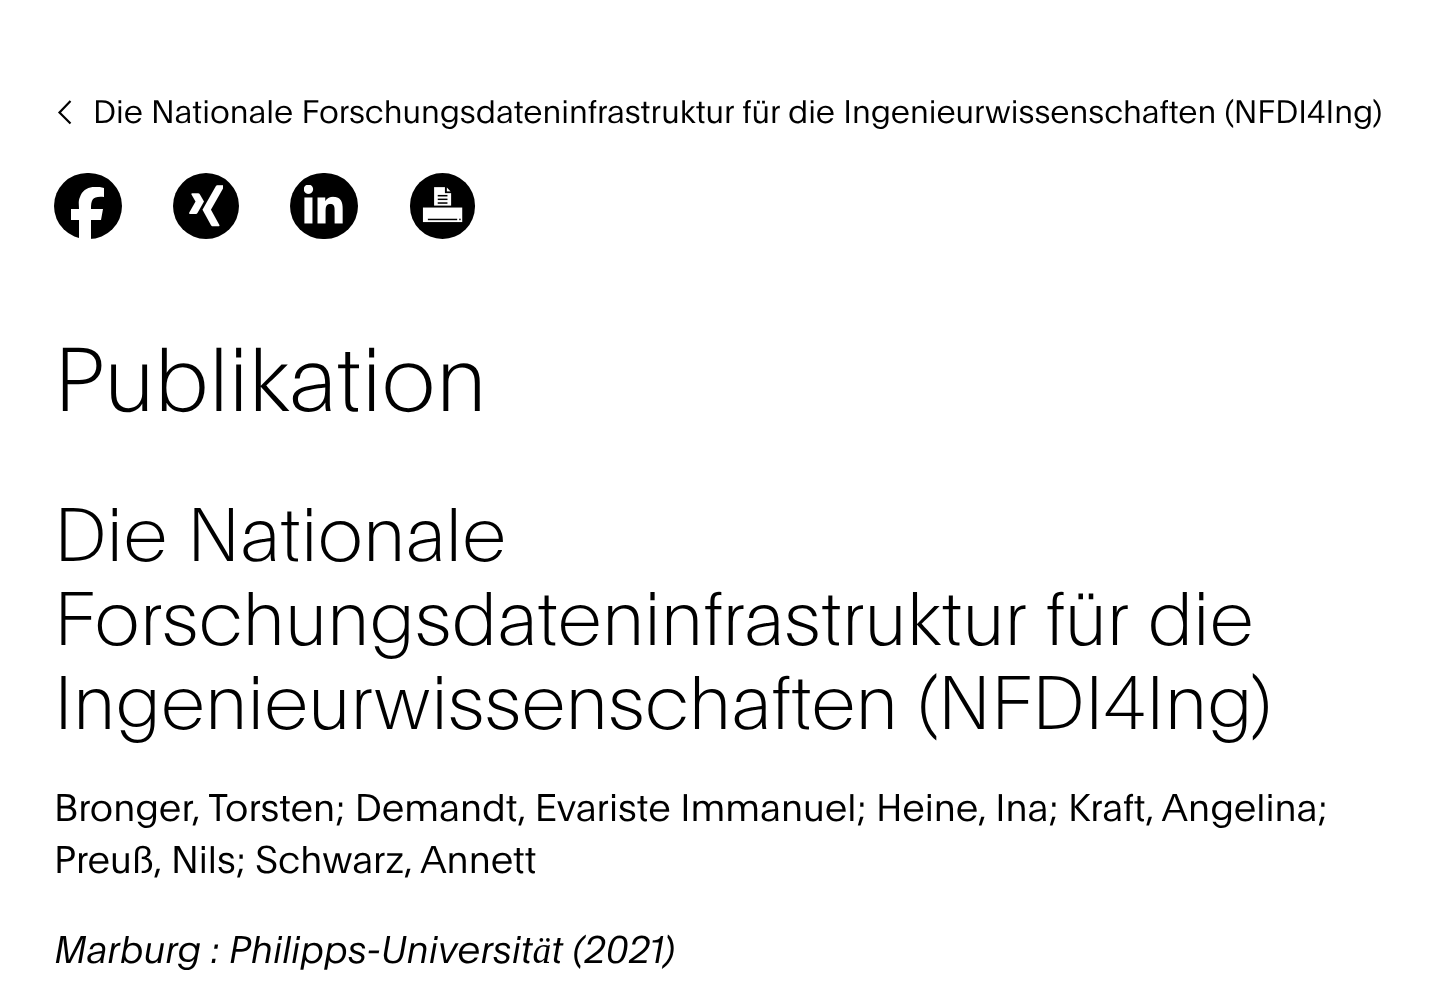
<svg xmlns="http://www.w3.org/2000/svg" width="1446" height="1006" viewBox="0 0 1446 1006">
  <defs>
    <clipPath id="clip1"><rect x="70" y="187" width="36" height="56"/></clipPath>
  </defs>
  <rect width="100%" height="100%" fill="rgb(255,255,255)"/>
  <path d="M70.5 123.5L59.5 112.5L70.5 101" fill="none" stroke="rgb(0,0,0)" stroke-width="2.2"/>
  <text x="93" y="123" font-family="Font" font-size="32" font-weight="300" fill="rgb(0,0,0)">Die Nationale Forschungsdateninfrastruktur für die Ingenieurwissenschaften (NFDI4Ing)</text>
  <rect x="54" y="173" width="68" height="66" rx="33" fill="rgb(0,0,0)"/>
  <g clip-path="url(#clip1)">
    <path d="M79 220V243H91V220H101L103 209H91C91 199 93 196 104 197V188C95 185 83 187 80 197C78 201 79 205 79 209H71V220Z" fill="rgb(255,255,255)"/>
  </g>
  <circle cx="206" cy="206" r="33" fill="rgb(0,0,0)"/>
  <image x="189" y="185" width="34" height="42" href="pic1.png"/>
  <rect x="290" y="173" width="68" height="66" rx="33" fill="rgb(0,0,0)"/>
  <image x="304" y="185" width="39" height="39" href="pic2.png"/>
  <rect x="410" y="173" width="65" height="66" rx="32.5" fill="rgb(0,0,0)"/>
  <image x="422" y="187" width="41" height="36" href="pic3.png"/>
  <text x="54" y="411" font-family="'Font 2'" font-size="88.5" font-weight="300" fill="rgb(0,0,0)">Publikation</text>
  <g font-family="'Font 2'" font-size="74.1" font-weight="300" fill="rgb(0,0,0)">
    <text>
      <tspan x="54" y="561">Die Nationale</tspan>
      <tspan x="54" y="645">Forschungsdateninfrastruktur für die</tspan>
      <tspan x="54" y="729">Ingenieurwissenschaften (NFDI4Ing)</tspan>
    </text>
  </g>
  <g font-family="Font" font-size="37.65" font-weight="300" fill="rgb(0,0,0)">
    <text>
      <tspan x="54" y="821">Bronger, Torsten; Demandt, Evariste Immanuel; Heine, Ina; Kraft, Angelina;</tspan>
      <tspan x="54" y="873">Preuß, Nils; Schwarz, Annett</tspan>
    </text>
  </g>
  <text x="54" y="963" font-family="Font" font-size="37.65" font-weight="300" font-style="italic" fill="rgb(0,0,0)">Marburg : Philipps-Universität (2021)</text>
</svg>
